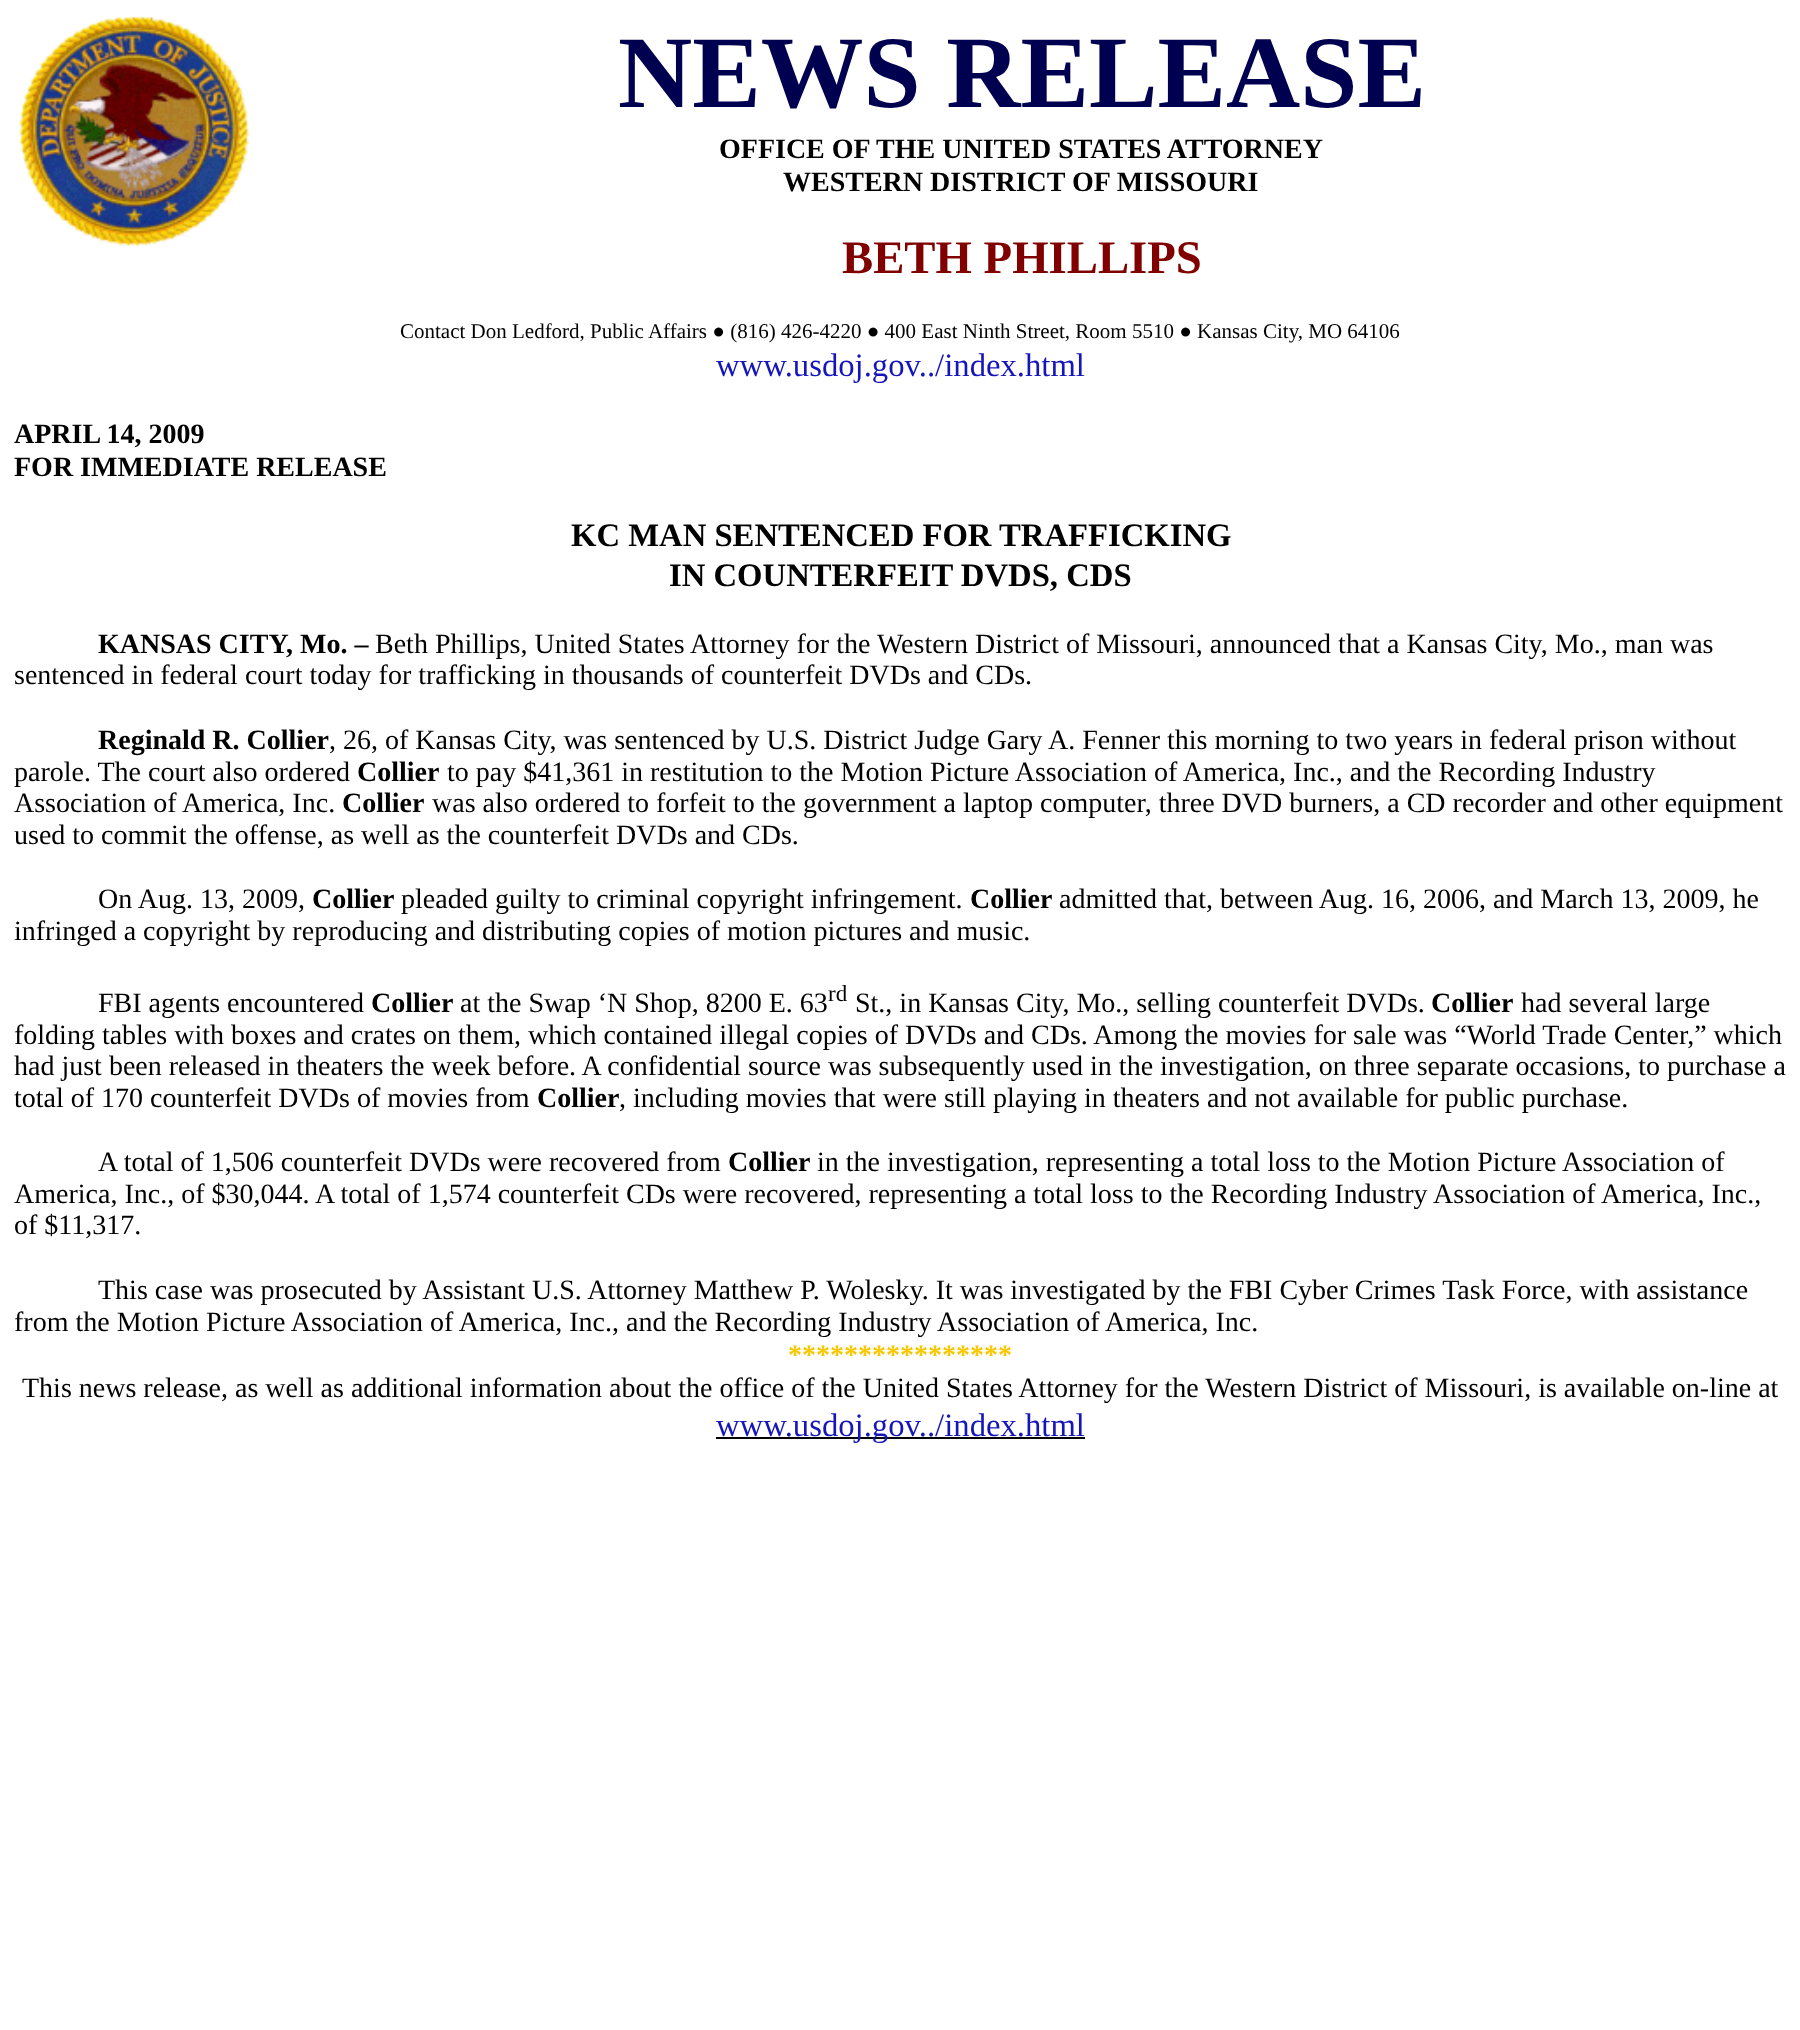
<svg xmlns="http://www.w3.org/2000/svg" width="1800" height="2030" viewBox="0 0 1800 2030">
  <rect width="100%" height="100%" fill="rgb(255,255,255)"/>
  <image x="18" y="15" width="232" height="232" href="pic1.png"/>
  <text x="618" y="107" font-family="Liberation Serif" font-size="102.75" font-weight="bold" fill="rgb(0,0,80)">NEWS RELEASE</text>
  <g font-family="Liberation Serif" font-size="28" font-weight="bold" fill="rgb(0,0,0)">
    <text x="719" y="158">OFFICE OF THE UNITED STATES ATTORNEY</text>
    <text x="783" y="191">WESTERN DISTRICT OF MISSOURI</text>
  </g>
  <text x="842" y="273" font-family="Liberation Serif" font-size="46.75" font-weight="bold" fill="rgb(128,0,0)">BETH PHILLIPS</text>
  <text x="400" y="338" font-family="Liberation Serif" font-size="21" fill="rgb(0,0,0)">Contact Don Ledford, Public Affairs ● (816) 426-4220 ● 400 East Ninth Street, Room 5510 ● Kansas City, MO 64106</text>
  <text x="716" y="376" font-family="Liberation Serif" font-size="32.7" fill="rgb(21,21,187)">www.usdoj.gov../index.html</text>
  <g font-family="Liberation Serif" font-size="28" font-weight="bold" fill="rgb(0,0,0)">
    <text>
      <tspan x="14" y="443">APRIL 14, 2009</tspan>
      <tspan x="14" y="476">FOR IMMEDIATE RELEASE</tspan>
    </text>
  </g>
  <g font-family="Liberation Serif" font-size="32.7" font-weight="bold" fill="rgb(0,0,0)">
    <text x="571" y="546">KC MAN SENTENCED FOR TRAFFICKING</text>
    <text x="669" y="586">IN COUNTERFEIT DVDS, CDS</text>
  </g>
  <text x="98" y="653" font-family="Liberation Serif" font-size="28" font-weight="bold" fill="rgb(0,0,0)">KANSAS CITY, Mo. –</text>
  <g font-family="Liberation Serif" font-size="28" fill="rgb(0,0,0)">
    <text x="375" y="653">Beth Phillips, United States Attorney for the Western District of Missouri, announced that a Kansas City, Mo., man was</text>
    <text x="14" y="684">sentenced in federal court today for trafficking in thousands of counterfeit DVDs and CDs.</text>
  </g>
  <text x="98" y="749" font-family="Liberation Serif" font-size="28" font-weight="bold" fill="rgb(0,0,0)">Reginald R. Collier</text>
  <g font-family="Liberation Serif" font-size="28" fill="rgb(0,0,0)">
    <text x="329" y="749">, 26, of Kansas City, was sentenced by U.S. District Judge Gary A. Fenner this morning to two years in federal prison without</text>
    <text x="14" y="781">parole. The court also ordered</text>
  </g>
  <text x="357" y="781" font-family="Liberation Serif" font-size="28" font-weight="bold" fill="rgb(0,0,0)">Collier</text>
  <g font-family="Liberation Serif" font-size="28" fill="rgb(0,0,0)">
    <text x="447" y="781">to pay $41,361 in restitution to the Motion Picture Association of America, Inc., and the Recording Industry</text>
    <text x="14" y="812">Association of America, Inc.</text>
  </g>
  <text x="342" y="812" font-family="Liberation Serif" font-size="28" font-weight="bold" fill="rgb(0,0,0)">Collier</text>
  <g font-family="Liberation Serif" font-size="28" fill="rgb(0,0,0)">
    <text x="432" y="812">was also ordered to forfeit to the government a laptop computer, three DVD burners, a CD recorder and other equipment</text>
    <text x="14" y="844">used to commit the offense, as well as the counterfeit DVDs and CDs.</text>
    <text x="98" y="908">On Aug. 13, 2009,</text>
  </g>
  <text x="312" y="908" font-family="Liberation Serif" font-size="28" font-weight="bold" fill="rgb(0,0,0)">Collier</text>
  <text x="401" y="908" font-family="Liberation Serif" font-size="28" fill="rgb(0,0,0)">pleaded guilty to criminal copyright infringement.</text>
  <text x="970" y="908" font-family="Liberation Serif" font-size="28" font-weight="bold" fill="rgb(0,0,0)">Collier</text>
  <g font-family="Liberation Serif" font-size="28" fill="rgb(0,0,0)">
    <text x="1059" y="908">admitted that, between Aug. 16, 2006, and March 13, 2009, he</text>
    <text x="14" y="940">infringed a copyright by reproducing and distributing copies of motion pictures and music.</text>
    <text x="98" y="1012">FBI agents encountered</text>
  </g>
  <text x="371" y="1012" font-family="Liberation Serif" font-size="28" font-weight="bold" fill="rgb(0,0,0)">Collier</text>
  <text x="460" y="1012" font-family="Liberation Serif" font-size="28" fill="rgb(0,0,0)">at the Swap ‘N Shop, 8200 E. 63</text>
  <text x="828" y="1001" font-family="Liberation Serif" font-size="23" fill="rgb(0,0,0)">rd</text>
  <text x="855" y="1012" font-family="Liberation Serif" font-size="28" fill="rgb(0,0,0)">St., in Kansas City, Mo., selling counterfeit DVDs.</text>
  <text x="1431" y="1012" font-family="Liberation Serif" font-size="28" font-weight="bold" fill="rgb(0,0,0)">Collier</text>
  <g font-family="Liberation Serif" font-size="28" fill="rgb(0,0,0)">
    <text x="1521" y="1012">had several large</text>
    <text>
      <tspan x="14" y="1044">folding tables with boxes and crates on them, which contained illegal copies of DVDs and CDs. Among the movies for sale was “World Trade Center,” which</tspan>
      <tspan x="14" y="1075">had just been released in theaters the week before. A confidential source was subsequently used in the investigation, on three separate occasions, to purchase a</tspan>
      <tspan x="14" y="1107">total of 170 counterfeit DVDs of movies from</tspan>
    </text>
  </g>
  <text x="537" y="1107" font-family="Liberation Serif" font-size="28" font-weight="bold" fill="rgb(0,0,0)">Collier</text>
  <g font-family="Liberation Serif" font-size="28" fill="rgb(0,0,0)">
    <text x="619" y="1107">, including movies that were still playing in theaters and not available for public purchase.</text>
    <text x="98" y="1171">A total of 1,506 counterfeit DVDs were recovered from</text>
  </g>
  <text x="728" y="1171" font-family="Liberation Serif" font-size="28" font-weight="bold" fill="rgb(0,0,0)">Collier</text>
  <g font-family="Liberation Serif" font-size="28" fill="rgb(0,0,0)">
    <text x="817" y="1171">in the investigation, representing a total loss to the Motion Picture Association of</text>
    <text>
      <tspan x="14" y="1203">America, Inc., of $30,044. A total of 1,574 counterfeit CDs were recovered, representing a total loss to the Recording Industry Association of America, Inc.,</tspan>
      <tspan x="14" y="1234">of $11,317.</tspan>
    </text>
    <text x="98" y="1299">This case was prosecuted by Assistant U.S. Attorney Matthew P. Wolesky. It was investigated by the FBI Cyber Crimes Task Force, with assistance</text>
    <text x="14" y="1331">from the Motion Picture Association of America, Inc., and the Recording Industry Association of America, Inc.</text>
  </g>
  <text x="788" y="1364" font-family="Liberation Serif" font-size="28" font-weight="bold" fill="rgb(249,199,0)">****************</text>
  <text x="22" y="1397" font-family="Liberation Serif" font-size="28" fill="rgb(0,0,0)">This news release, as well as additional information about the office of the United States Attorney for the Western District of Missouri, is available on-line at</text>
  <rect x="716" y="1437" width="369" height="2" fill="rgb(0,0,0)"/>
  <text x="716" y="1436" font-family="Liberation Serif" font-size="32.7" fill="rgb(21,21,187)">www.usdoj.gov../index.html</text>
</svg>
